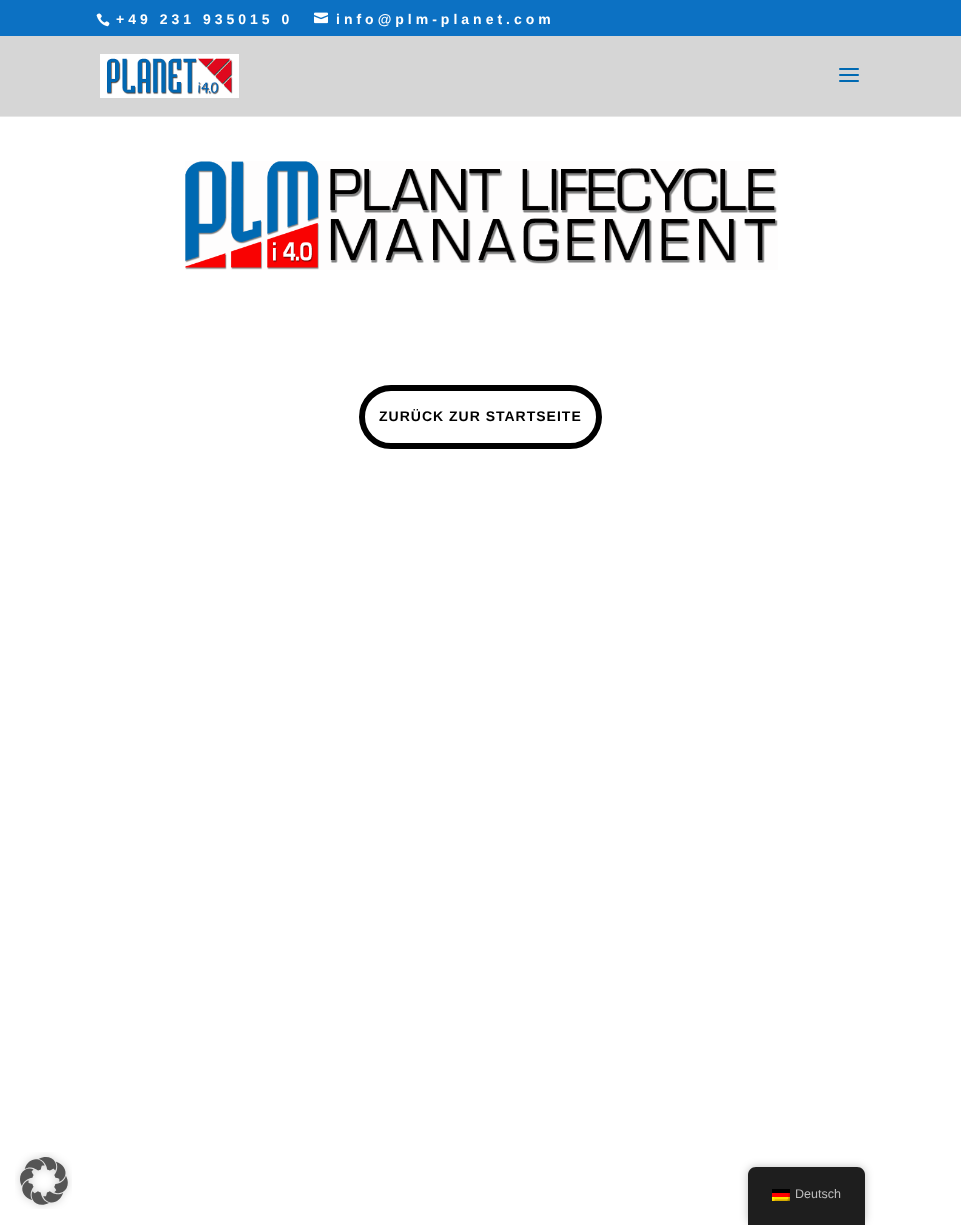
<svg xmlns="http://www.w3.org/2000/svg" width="961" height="1225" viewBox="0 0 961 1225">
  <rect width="100%" height="100%" fill="rgb(255,255,255)"/>
  <rect x="0" y="0" width="961" height="36" fill="rgb(12,113,195)"/>
  <image x="96" y="13" width="14" height="14" href="pic1.png"/>
  <text x="116" y="24" font-family="Liberation Sans" font-size="14" font-weight="bold" letter-spacing="4" fill="rgb(255,255,255)">+49 231 935015 0</text>
  <image x="314" y="12" width="14" height="12" href="pic2.png"/>
  <text x="336" y="24" font-family="Liberation Sans" font-size="14" font-weight="bold" letter-spacing="4" fill="rgb(255,255,255)">info@plm-planet.com</text>
  <rect x="0" y="116" width="961" height="1" fill="rgb(230,230,230)"/>
  <rect x="0" y="36" width="961" height="80" fill="rgb(214,214,214)"/>
  <image x="100" y="54" width="139" height="44" href="pic3.png"/>
  <image x="839" y="68" width="20" height="14" href="pic4.png"/>
  <image x="185" y="161" width="593" height="109" href="pic5.png"/>
  <rect x="362" y="388" width="237" height="58" rx="29" fill="none" stroke="rgb(0,0,0)" stroke-width="6"/>
  <text x="379" y="421" font-family="Liberation Sans" font-size="14" font-weight="bold" letter-spacing="1" fill="rgb(0,0,0)">ZURÜCK ZUR STARTSEITE</text>
  <image x="15" y="1152" width="57" height="57" href="pic6.png"/>
  <rect x="748" y="1167" width="117" height="58" rx="8" fill="rgba(0,0,0,0.25)" filter="blur(4px)"/>
  <path d="M756 1167H857C861.5 1167 865 1170.5 865 1175V1225H748V1175C748 1170.5 751.5 1167 756 1167Z" fill="rgb(30,30,30)"/>
  <image x="772" y="1189" width="18" height="12" href="pic7.png"/>
  <text x="795" y="1198" font-family="Liberation Sans" font-size="12.5" fill="rgb(189,189,189)">Deutsch</text>
</svg>
